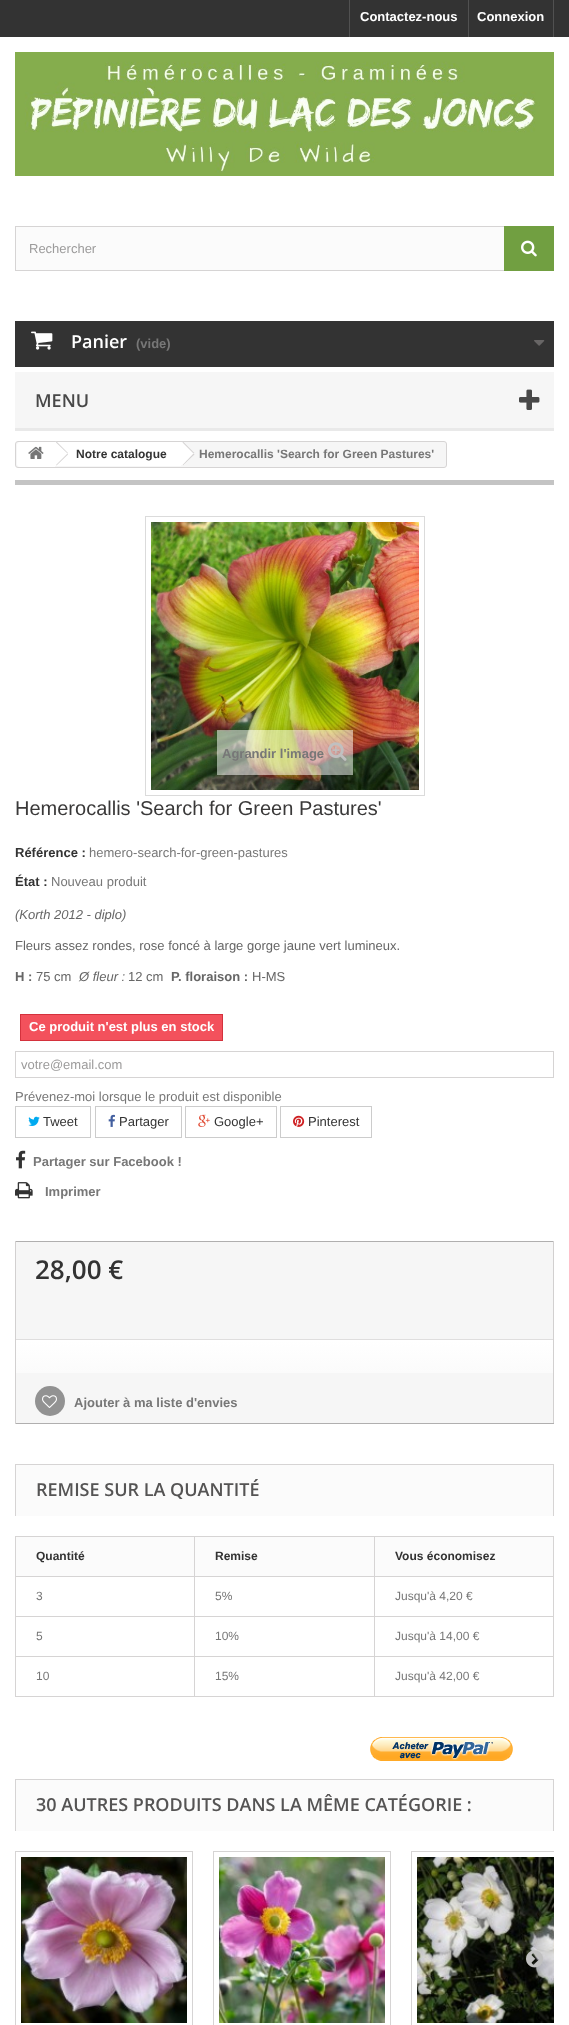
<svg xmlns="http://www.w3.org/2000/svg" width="569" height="2025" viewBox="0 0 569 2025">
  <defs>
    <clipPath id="clip1"><path d="M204 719H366V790H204ZM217 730H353V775H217Z" clip-rule="evenodd"/></clipPath>
    <linearGradient id="g1" gradientUnits="userSpaceOnUse" x1="285" y1="1340" x2="285" y2="1373"><stop offset="0" stop-color="rgb(255,255,255)"/><stop offset="1" stop-color="rgb(251,251,251)"/></linearGradient>
    <clipPath id="clip2"><rect x="15" y="1851" width="539" height="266"/></clipPath>
  </defs>
  <rect width="100%" height="100%" fill="rgb(255,255,255)"/>
  <rect x="0" y="0" width="569" height="37" fill="rgb(51,51,51)"/>
  <rect x="349" y="0" width="1" height="37" fill="rgb(81,81,81)"/>
  <text x="360" y="21" font-family="Liberation Sans" font-size="13" font-weight="bold" fill="rgb(255,255,255)">Contactez-nous</text>
  <rect x="553" y="0" width="1" height="37" fill="rgb(81,81,81)"/>
  <rect x="468" y="0" width="1" height="37" fill="rgb(81,81,81)"/>
  <text x="477" y="21" font-family="Liberation Sans" font-size="13" font-weight="bold" fill="rgb(255,255,255)">Connexion</text>
  <image x="15" y="52" width="539" height="124" href="pic1.png"/>
  <rect x="16" y="227" width="488" height="43" fill="rgb(251,251,251)"/>
  <rect x="15.5" y="226.5" width="538" height="44" fill="none" stroke="rgb(214,212,212)"/>
  <text x="29" y="253" font-family="Liberation Sans" font-size="13" fill="rgb(156,155,155)">Rechercher</text>
  <rect x="504" y="226" width="50" height="45" fill="rgb(113,159,65)"/>
  <image x="521" y="240" width="16" height="17" href="pic2.png"/>
  <rect x="15" y="321" width="539" height="46" fill="rgb(51,51,51)"/>
  <image x="31" y="331" width="22" height="19" href="pic3.png"/>
  <text x="71" y="348" font-family="Open Sans" font-size="18" font-weight="600" fill="rgb(255,255,255)">Panier</text>
  <text x="136" y="348" font-family="Liberation Sans" font-size="13" font-weight="bold" fill="rgb(119,119,119)">(vide)</text>
  <image x="534" y="340" width="11" height="6" href="pic4.png"/>
  <rect x="15" y="372" width="539" height="56" fill="rgb(246,246,246)"/>
  <rect x="15" y="428" width="539" height="3" fill="rgb(233,233,233)"/>
  <text x="35" y="407" font-family="Open Sans" font-size="18" font-weight="600" fill="rgb(72,72,72)">MENU</text>
  <image x="519" y="389" width="21" height="21" href="pic5.png"/>
  <rect x="15.5" y="441.5" width="431" height="26" rx="2.5" fill="rgb(246,246,246)" stroke="rgb(214,212,212)"/>
  <path d="M20 442H55V467H20C18.5 467 17 465.5 17 464V445C17 443.5 18.5 442 20 442Z" fill="rgb(255,255,255)"/>
  <image x="28" y="446" width="16" height="13" href="pic6.png"/>
  <rect x="55" y="442" width="126" height="24" fill="rgb(255,255,255)"/>
  <path d="M57.5 442.5L67.5 452C68 453 68 454.5 67.5 455L57.5 465C56.5 466 55.5 466 54.5 465L44.5 455C44 454.5 44 453 44.5 452L54.5 442.5C55.5 441.5 56.5 441.5 57.5 442.5Z" fill="rgb(255,255,255)"/>
  <path d="M56.5 441.5L68 453L67.5 453.5L56 442.5Z" fill="rgb(214,212,212)"/>
  <path d="M67.5 453.5L68 454.5L56.5 465.5L56 465Z" fill="rgb(214,212,212)"/>
  <text x="76" y="458" font-family="Liberation Sans" font-size="12" font-weight="bold" fill="rgb(51,51,51)">Notre catalogue</text>
  <path d="M184 442.5C183.5 442 182.5 442 181.5 442L172.5 450.5C170 453 170 454 172.5 456.5L176 460C184 468 181.5 467.5 190.5 458.5C191.5 457 196 454.5 193.5 452Z" fill="rgb(255,255,255)"/>
  <path d="M183 441.5L194.5 453L193.5 453.5L182.5 442.5Z" fill="rgb(214,212,212)"/>
  <path d="M193.5 453.5L194.5 454.5L183 465.5L182.5 465Z" fill="rgb(214,212,212)"/>
  <text x="199" y="458" font-family="Liberation Sans" font-size="12" font-weight="bold" fill="rgb(119,119,119)">Hemerocallis 'Search for Green Pastures'</text>
  <rect x="15" y="480" width="539" height="5" fill="rgb(196,196,196)"/>
  <rect x="145.5" y="516.5" width="279" height="279" fill="none" stroke="rgb(219,219,219)"/>
  <image x="151" y="522" width="268" height="268" href="pic7.png"/>
  <g clip-path="url(#clip1)">
    <rect x="217" y="732" width="136" height="45" fill="rgba(0,0,0,0.16)" filter="blur(4px)"/>
  </g>
  <rect x="217" y="730" width="136" height="45" fill="rgba(255,255,255,0.5)"/>
  <text x="222" y="758" font-family="Liberation Sans" font-size="13" font-weight="bold" fill="rgb(119,119,119)">Agrandir l'image</text>
  <image x="328" y="742" width="19" height="19" href="pic8.png"/>
  <text x="15" y="815" font-family="Liberation Sans" font-size="20" fill="rgb(58,57,57)">Hemerocallis 'Search for Green Pastures'</text>
  <text x="15" y="857" font-family="Liberation Sans" font-size="13" font-weight="bold" fill="rgb(51,51,51)">Référence :</text>
  <text x="89" y="857" font-family="Liberation Sans" font-size="13" fill="rgb(119,119,119)">hemero-search-for-green-pastures</text>
  <text x="15" y="886" font-family="Liberation Sans" font-size="13" font-weight="bold" fill="rgb(51,51,51)">État :</text>
  <text x="51" y="886" font-family="Liberation Sans" font-size="13" fill="rgb(119,119,119)">Nouveau produit</text>
  <text x="15" y="919" font-family="Liberation Sans" font-size="13" font-style="italic" fill="rgb(102,102,102)">(Korth 2012 - diplo)</text>
  <text x="15" y="950" font-family="Liberation Sans" font-size="13" fill="rgb(102,102,102)">Fleurs assez rondes, rose foncé à large gorge jaune vert lumineux.</text>
  <text x="15" y="981" font-family="Liberation Sans" font-size="13" font-weight="bold" fill="rgb(102,102,102)">H :</text>
  <text x="36" y="981" font-family="Liberation Sans" font-size="13" fill="rgb(102,102,102)">75 cm</text>
  <text x="79" y="981" font-family="Liberation Sans" font-size="13" font-style="italic" fill="rgb(102,102,102)">Ø fleur :</text>
  <text x="128" y="981" font-family="Liberation Sans" font-size="13" fill="rgb(102,102,102)">12 cm</text>
  <text x="171" y="981" font-family="Liberation Sans" font-size="13" font-weight="bold" fill="rgb(102,102,102)">P. floraison :</text>
  <text x="252" y="981" font-family="Liberation Sans" font-size="13" fill="rgb(102,102,102)">H-MS</text>
  <rect x="20.5" y="1014.5" width="202" height="26" fill="rgb(243,81,92)" stroke="rgb(212,50,61)"/>
  <text x="29" y="1031" font-family="Liberation Sans" font-size="13" font-weight="bold" fill="rgb(255,255,255)">Ce produit n'est plus en stock</text>
  <rect x="15.5" y="1051.5" width="538" height="26" fill="none" stroke="rgb(214,212,212)"/>
  <text x="21" y="1069" font-family="Liberation Sans" font-size="13" fill="rgb(156,155,155)">votre@email.com</text>
  <text x="15" y="1101" font-family="Liberation Sans" font-size="13" fill="rgb(119,119,119)">Prévenez-moi lorsque le produit est disponible</text>
  <rect x="15.5" y="1106.5" width="75" height="31" fill="none" stroke="rgb(204,204,204)"/>
  <image x="28" y="1116" width="12" height="10" href="pic9.png"/>
  <text x="43" y="1126" font-family="Liberation Sans" font-size="13" fill="rgb(51,51,51)">Tweet</text>
  <rect x="95.5" y="1106.5" width="86" height="31" fill="none" stroke="rgb(204,204,204)"/>
  <image x="108" y="1114" width="7" height="13" href="pic10.png"/>
  <text x="119" y="1126" font-family="Liberation Sans" font-size="13" fill="rgb(51,51,51)">Partager</text>
  <rect x="185.5" y="1106.5" width="91" height="31" fill="none" stroke="rgb(204,204,204)"/>
  <image x="198" y="1114" width="12" height="13" href="pic11.png"/>
  <text x="214" y="1126" font-family="Liberation Sans" font-size="13" fill="rgb(51,51,51)">Google+</text>
  <rect x="280.5" y="1106.5" width="91" height="31" fill="none" stroke="rgb(204,204,204)"/>
  <image x="293" y="1115" width="12" height="12" href="pic12.png"/>
  <text x="308" y="1126" font-family="Liberation Sans" font-size="13" fill="rgb(51,51,51)">Pinterest</text>
  <image x="16" y="1150" width="10" height="19" href="pic13.png"/>
  <text x="33" y="1166" font-family="Liberation Sans" font-size="13" font-weight="bold" fill="rgb(119,119,119)">Partager sur Facebook !</text>
  <image x="15" y="1182" width="18" height="17" href="pic14.png"/>
  <text x="45" y="1196" font-family="Liberation Sans" font-size="13" font-weight="bold" fill="rgb(119,119,119)">Imprimer</text>
  <rect x="16" y="1242" width="537" height="181" fill="rgb(246,246,246)"/>
  <rect x="15" y="1241" width="539" height="1" fill="rgb(176,175,175)"/>
  <rect x="553" y="1241" width="1" height="183" fill="rgb(210,208,208)"/>
  <rect x="15" y="1423" width="539" height="1" fill="rgb(176,175,175)"/>
  <rect x="15" y="1241" width="1" height="183" fill="rgb(210,208,208)"/>
  <text x="35" y="1279" font-family="Open Sans" font-size="26" font-weight="600" fill="rgb(51,51,51)">28,00 €</text>
  <rect x="16" y="1340" width="537" height="33" fill="url(#g1)"/>
  <rect x="16" y="1339" width="537" height="1" fill="rgb(223,222,222)"/>
  <circle cx="50" cy="1401" r="15" fill="rgb(146,146,146)"/>
  <image x="42" y="1395" width="15" height="13" href="pic15.png"/>
  <text x="74" y="1407" font-family="Liberation Sans" font-size="13" font-weight="bold" fill="rgb(119,119,119)">Ajouter à ma liste d'envies</text>
  <rect x="16" y="1465" width="537" height="51" fill="rgb(251,251,251)"/>
  <rect x="15" y="1464" width="539" height="1" fill="rgb(214,212,212)"/>
  <rect x="553" y="1464" width="1" height="52" fill="rgb(214,212,212)"/>
  <rect x="15" y="1464" width="1" height="52" fill="rgb(214,212,212)"/>
  <text x="36" y="1496" font-family="Open Sans" font-size="18" font-weight="600" fill="rgb(85,84,84)">REMISE SUR LA QUANTITÉ</text>
  <rect x="553" y="1536" width="1" height="161" fill="rgb(214,212,212)"/>
  <rect x="15" y="1696" width="539" height="1" fill="rgb(214,212,212)"/>
  <rect x="16" y="1537" width="178" height="39" fill="rgb(251,251,251)"/>
  <rect x="15" y="1536" width="538" height="1" fill="rgb(214,212,212)"/>
  <rect x="15" y="1536" width="1" height="40" fill="rgb(214,212,212)"/>
  <text x="36" y="1560" font-family="Liberation Sans" font-size="12" font-weight="bold" fill="rgb(51,51,51)">Quantité</text>
  <rect x="195" y="1537" width="179" height="39" fill="rgb(251,251,251)"/>
  <rect x="194" y="1536" width="1" height="40" fill="rgb(214,212,212)"/>
  <text x="215" y="1560" font-family="Liberation Sans" font-size="12" font-weight="bold" fill="rgb(51,51,51)">Remise</text>
  <rect x="375" y="1537" width="178" height="39" fill="rgb(251,251,251)"/>
  <rect x="374" y="1536" width="1" height="40" fill="rgb(214,212,212)"/>
  <text x="395" y="1560" font-family="Liberation Sans" font-size="12" font-weight="bold" fill="rgb(51,51,51)">Vous économisez</text>
  <rect x="15" y="1576" width="538" height="1" fill="rgb(214,212,212)"/>
  <rect x="15" y="1576" width="1" height="40" fill="rgb(214,212,212)"/>
  <text x="36" y="1600" font-family="Liberation Sans" font-size="12" fill="rgb(119,119,119)">3</text>
  <rect x="194" y="1576" width="1" height="40" fill="rgb(214,212,212)"/>
  <text x="215" y="1600" font-family="Liberation Sans" font-size="12" fill="rgb(119,119,119)">5%</text>
  <rect x="374" y="1576" width="1" height="40" fill="rgb(214,212,212)"/>
  <text x="395" y="1600" font-family="Liberation Sans" font-size="12" fill="rgb(119,119,119)">Jusqu'à 4,20 €</text>
  <rect x="15" y="1616" width="538" height="1" fill="rgb(214,212,212)"/>
  <rect x="15" y="1616" width="1" height="40" fill="rgb(214,212,212)"/>
  <text x="36" y="1640" font-family="Liberation Sans" font-size="12" fill="rgb(119,119,119)">5</text>
  <rect x="194" y="1616" width="1" height="40" fill="rgb(214,212,212)"/>
  <text x="215" y="1640" font-family="Liberation Sans" font-size="12" fill="rgb(119,119,119)">10%</text>
  <rect x="374" y="1616" width="1" height="40" fill="rgb(214,212,212)"/>
  <text x="395" y="1640" font-family="Liberation Sans" font-size="12" fill="rgb(119,119,119)">Jusqu'à 14,00 €</text>
  <rect x="15" y="1656" width="538" height="1" fill="rgb(214,212,212)"/>
  <rect x="15" y="1656" width="1" height="40" fill="rgb(214,212,212)"/>
  <text x="36" y="1680" font-family="Liberation Sans" font-size="12" fill="rgb(119,119,119)">10</text>
  <rect x="194" y="1656" width="1" height="40" fill="rgb(214,212,212)"/>
  <text x="215" y="1680" font-family="Liberation Sans" font-size="12" fill="rgb(119,119,119)">15%</text>
  <rect x="374" y="1656" width="1" height="40" fill="rgb(214,212,212)"/>
  <text x="395" y="1680" font-family="Liberation Sans" font-size="12" fill="rgb(119,119,119)">Jusqu'à 42,00 €</text>
  <image x="370" y="1737" width="143" height="24" href="pic16.png"/>
  <rect x="16" y="1780" width="537" height="51" fill="rgb(251,251,251)"/>
  <rect x="15" y="1779" width="539" height="1" fill="rgb(214,212,212)"/>
  <rect x="553" y="1779" width="1" height="52" fill="rgb(214,212,212)"/>
  <rect x="15" y="1779" width="1" height="52" fill="rgb(214,212,212)"/>
  <text x="36" y="1811" font-family="Open Sans" font-size="18" font-weight="600" fill="rgb(85,84,84)">30 AUTRES PRODUITS DANS LA MÊME CATÉGORIE :</text>
  <rect x="15.5" y="1851.5" width="177" height="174" fill="none" stroke="rgb(214,212,212)"/>
  <image x="21" y="1857" width="166" height="166" href="pic17.png"/>
  <rect x="213.5" y="1851.5" width="177" height="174" fill="none" stroke="rgb(214,212,212)"/>
  <image x="219" y="1857" width="166" height="166" href="pic18.png"/>
  <g clip-path="url(#clip2)">
    <rect x="411.5" y="1851.5" width="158" height="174" fill="none" stroke="rgb(214,212,212)"/>
  </g>
  <image x="417" y="1857" width="137" height="166" href="pic19.png"/>
  <image x="526" y="1950" width="17" height="18" href="pic20.png"/>
</svg>
